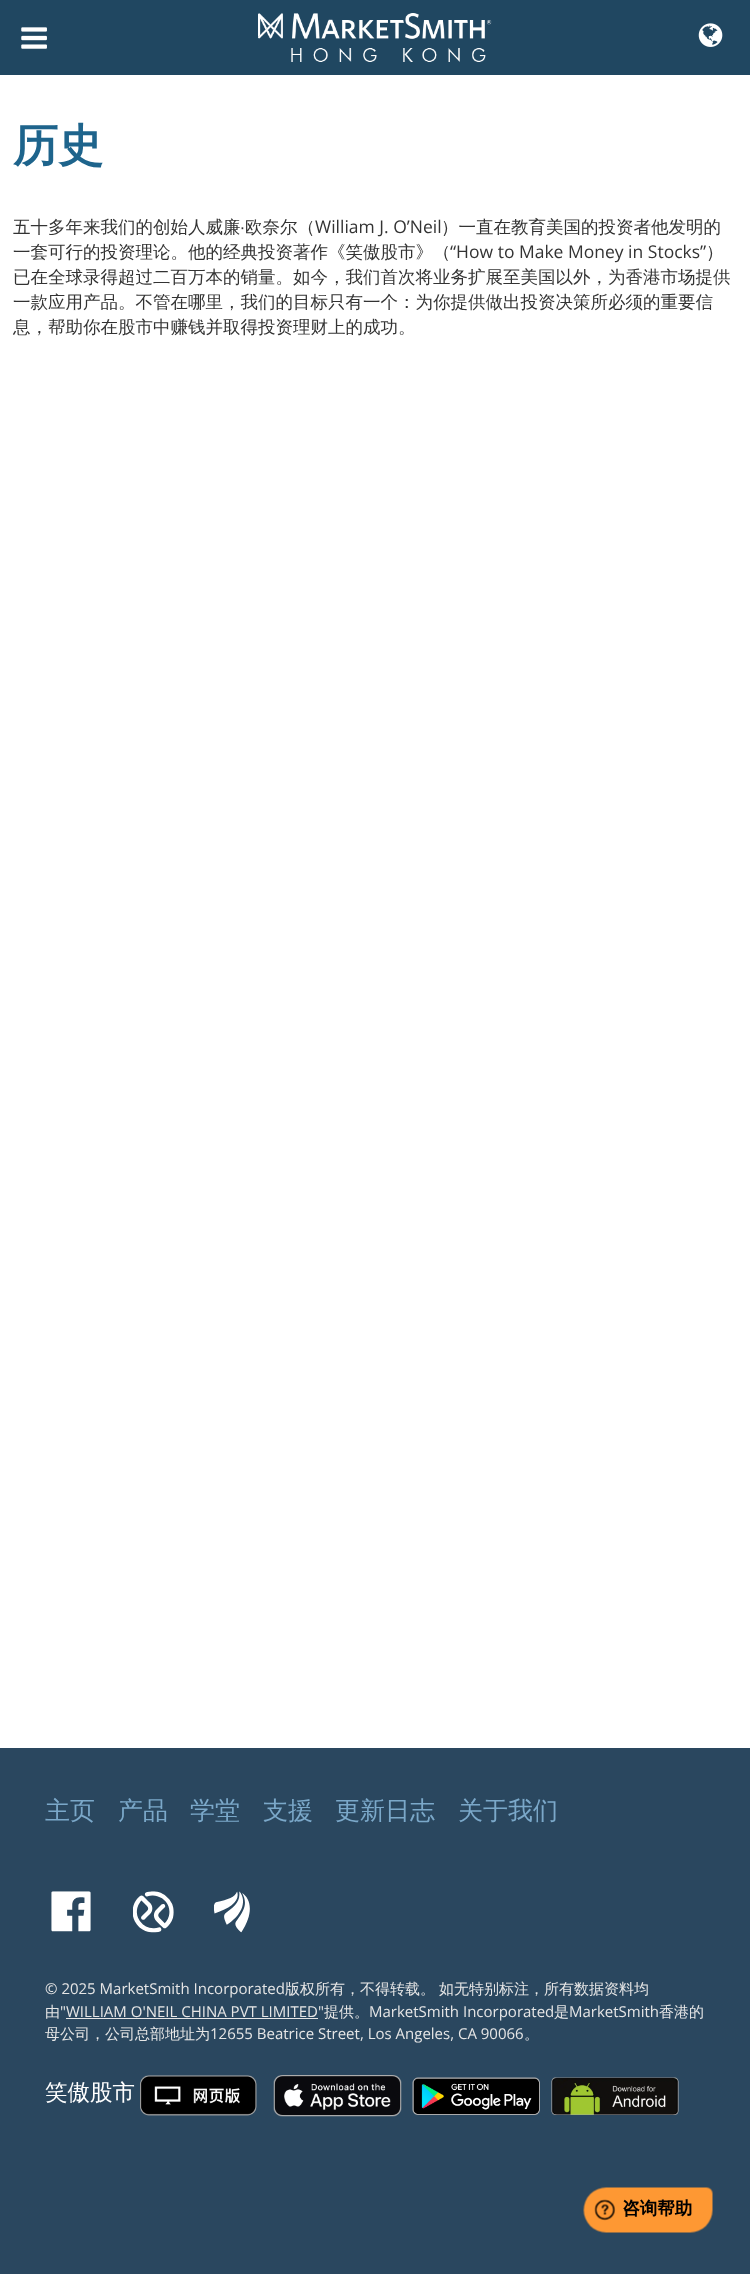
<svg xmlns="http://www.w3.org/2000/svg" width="750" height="2274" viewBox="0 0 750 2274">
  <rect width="100%" height="100%" fill="rgb(42,71,95)"/>
  <rect x="0" y="0" width="750" height="75" fill="rgb(32,71,97)"/>
  <image x="258" y="13" width="234" height="49" href="pic1.png"/>
  <image x="21" y="27" width="26" height="22" href="pic2.png"/>
  <image x="698" y="23" width="25" height="24" href="pic3.png"/>
  <rect x="0" y="75" width="750" height="1673" fill="rgb(255,255,255)"/>
  <text x="13" y="161" font-family="WenQuanYi Zen Hei" font-size="45" font-weight="bold" fill="rgb(30,100,140)">历史</text>
  <text x="13" y="233" font-family="WenQuanYi Zen Hei" font-size="17.5" font-weight="500" fill="rgb(51,51,51)">五十多年来我们的创始人威廉</text>
  <text x="240" y="233" font-family="Liberation Sans" font-size="17.5" fill="rgb(51,51,51)">∙</text>
  <text x="245" y="233" font-family="WenQuanYi Zen Hei" font-size="17.5" font-weight="500" fill="rgb(51,51,51)">欧奈尔（</text>
  <text x="315" y="233" font-family="Open Sans" font-size="17.5" fill="rgb(51,51,51)">William J. O’Neil</text>
  <g font-family="WenQuanYi Zen Hei" font-size="17.5" font-weight="500" fill="rgb(51,51,51)">
    <text x="441" y="233">）一直在教育美国的投资者他发明的</text>
    <text x="13" y="258">一套可行的投资理论。他的经典投资著作《笑傲股市》（</text>
  </g>
  <text x="450" y="258" font-family="Open Sans" font-size="17.5" fill="rgb(51,51,51)">“How to Make Money in Stocks”</text>
  <g font-family="WenQuanYi Zen Hei" font-size="17.5" font-weight="500" fill="rgb(51,51,51)">
    <text x="706" y="258">）</text>
    <text>
      <tspan x="13" y="283">已在全球录得超过二百万本的销量。如今，我们首次将业务扩展至美国以外，为香港市场提供</tspan>
      <tspan x="13" y="308">一款应用产品。不管在哪里，我们的目标只有一个：为你提供做出投资决策所必须的重要信</tspan>
      <tspan x="13" y="333">息，帮助你在股市中赚钱并取得投资理财上的成功。</tspan>
    </text>
  </g>
  <g font-family="WenQuanYi Zen Hei" font-size="25" font-weight="500" fill="rgb(123,168,201)">
    <text x="45" y="1819">主页</text>
    <text x="118" y="1819">产品</text>
    <text x="190" y="1819">学堂</text>
    <text x="263" y="1819">支援</text>
    <text x="335" y="1819">更新日志</text>
    <text x="458" y="1819">关于我们</text>
  </g>
  <image x="51" y="1891" width="40" height="41" href="pic4.png"/>
  <image x="133" y="1891" width="41" height="42" href="pic5.png"/>
  <image x="214" y="1891" width="36" height="42" href="pic6.png"/>
  <text x="45" y="1994" font-family="Open Sans" font-size="15" fill="rgb(230,230,230)">© 2025 MarketSmith Incorporated</text>
  <g font-family="WenQuanYi Zen Hei" font-size="15" font-weight="500" fill="rgb(230,230,230)">
    <text x="285" y="1994">版权所有，不得转载。</text>
    <text x="439" y="1994">如无特别标注，所有数据资料均</text>
    <text x="45" y="2017">由</text>
  </g>
  <text x="60" y="2017" font-family="Open Sans" font-size="15" fill="rgb(230,230,230)">"WILLIAM O'NEIL CHINA PVT LIMITED"</text>
  <text x="324" y="2017" font-family="WenQuanYi Zen Hei" font-size="15" font-weight="500" fill="rgb(230,230,230)">提供。</text>
  <text x="369" y="2017" font-family="Open Sans" font-size="15" fill="rgb(230,230,230)">MarketSmith Incorporated</text>
  <text x="554" y="2017" font-family="WenQuanYi Zen Hei" font-size="15" font-weight="500" fill="rgb(230,230,230)">是</text>
  <text x="569" y="2017" font-family="Open Sans" font-size="15" fill="rgb(230,230,230)">MarketSmith</text>
  <text x="659" y="2017" font-family="WenQuanYi Zen Hei" font-size="15" font-weight="500" fill="rgb(230,230,230)">香港的</text>
  <rect x="66" y="2018" width="252" height="1" fill="rgb(230,230,230)"/>
  <text x="45" y="2039" font-family="WenQuanYi Zen Hei" font-size="15" font-weight="500" fill="rgb(230,230,230)">母公司，公司总部地址为</text>
  <text x="210" y="2039" font-family="Open Sans" font-size="15" fill="rgb(230,230,230)">12655 Beatrice Street, Los Angeles, CA 90066</text>
  <text x="524" y="2039" font-family="WenQuanYi Zen Hei" font-size="15" font-weight="500" fill="rgb(230,230,230)">。</text>
  <text x="45" y="2100" font-family="WenQuanYi Zen Hei" font-size="22.5" font-weight="500" fill="rgb(255,255,255)">笑傲股市</text>
  <image x="140" y="2075" width="117" height="41" href="pic7.png"/>
  <image x="273" y="2075" width="129" height="42" href="pic8.png"/>
  <image x="412" y="2077" width="128" height="38" href="pic9.png"/>
  <image x="551" y="2077" width="128" height="38" href="pic10.png"/>
  <image x="583" y="2187" width="130" height="46" href="pic11.png"/>
</svg>
